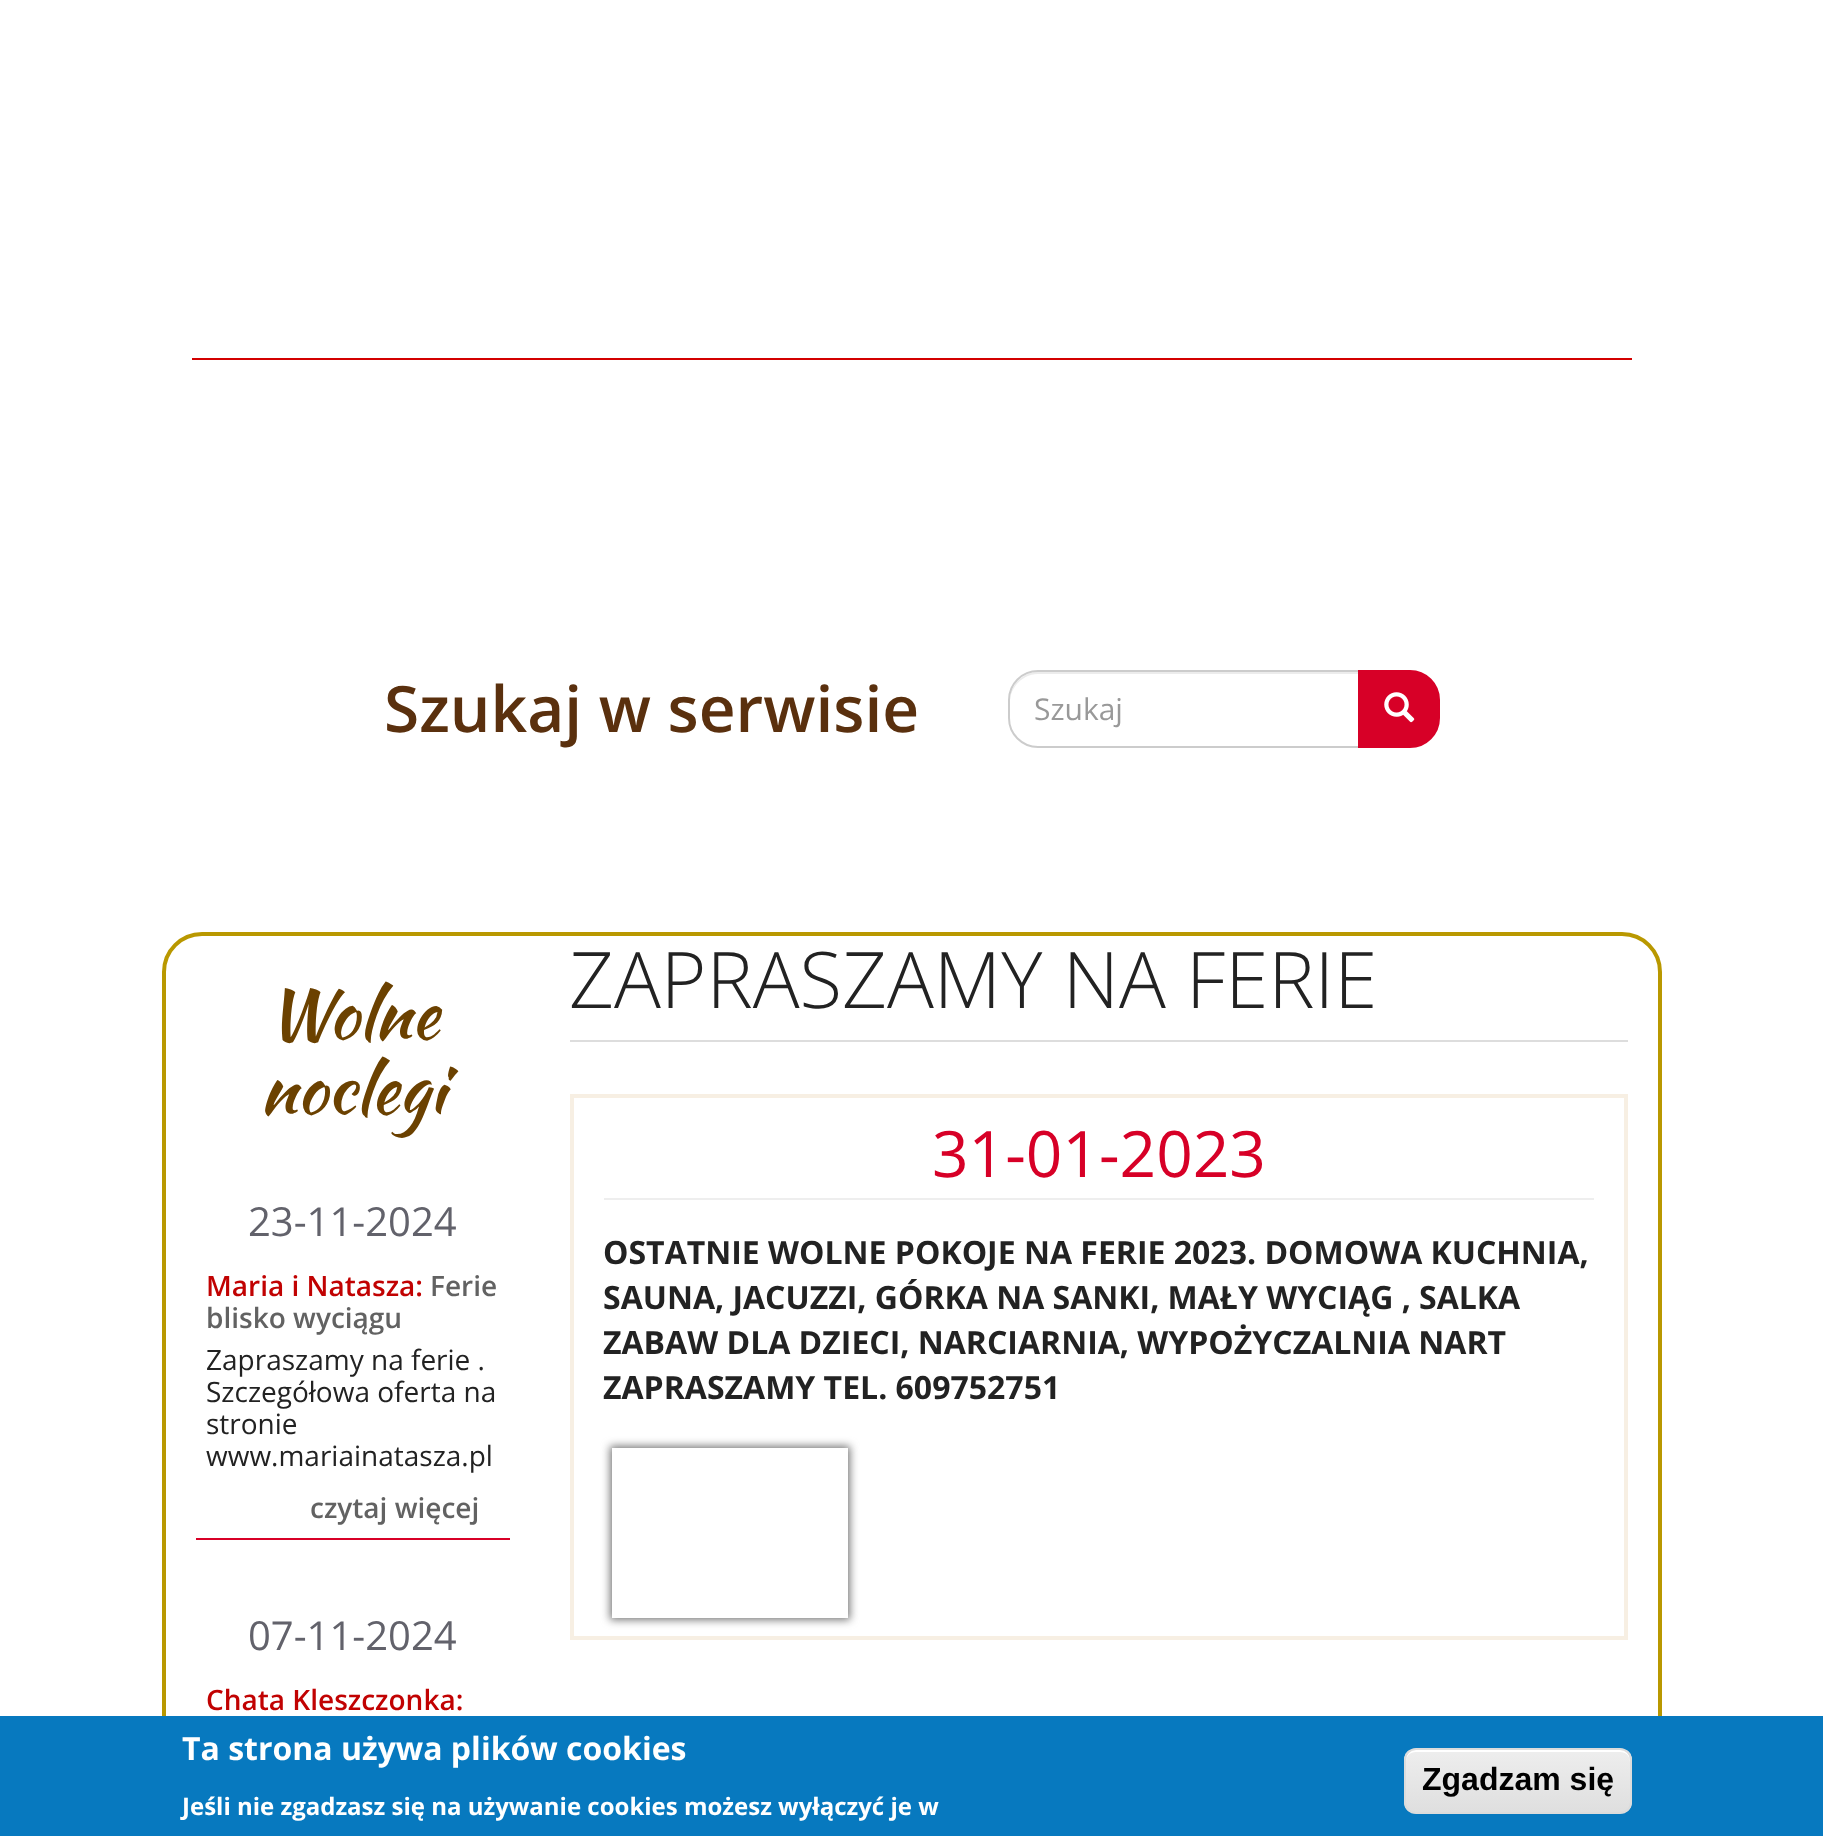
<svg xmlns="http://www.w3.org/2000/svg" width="1823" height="1836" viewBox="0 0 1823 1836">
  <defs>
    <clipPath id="clip1"><path d="M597 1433H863V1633H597ZM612 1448H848V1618H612Z" clip-rule="evenodd"/></clipPath>
    <clipPath id="clip2"><rect x="1404" y="1748" width="228" height="66" rx="12"/></clipPath>
    <linearGradient id="g1" gradientUnits="userSpaceOnUse" x1="1518" y1="1750" x2="1518" y2="1812"><stop offset="0.05" stop-color="rgb(237,237,237)"/><stop offset="1" stop-color="rgb(223,223,223)"/></linearGradient>
  </defs>
  <rect width="100%" height="100%" fill="rgb(255,255,255)"/>
  <rect x="192" y="358" width="1440" height="2" fill="rgb(211,0,0)"/>
  <text x="384" y="732" font-family="Open Sans" font-size="64" font-weight="600" fill="rgb(90,48,14)">Szukaj w serwisie</text>
  <path d="M1038 674H1358V672H1038C1023 672 1010 685 1010 700V702C1010 687 1023 674 1038 674Z" fill="rgb(236,236,236)"/>
  <path d="M1038 671H1359V747H1038C1022 747 1009 734 1009 718V700C1009 684 1022 671 1038 671Z" fill="none" stroke="rgb(204,204,204)" stroke-width="2"/>
  <text x="1034" y="720" font-family="Open Sans" font-size="30" fill="rgb(153,153,153)">Szukaj</text>
  <path d="M1359 671H1410C1426 671 1439 684 1439 700V718C1439 734 1426 747 1410 747H1359Z" fill="rgb(215,0,39)" stroke="rgb(215,0,39)" stroke-width="2"/>
  <image x="1384" y="692" width="31" height="31" href="pic1.png"/>
  <rect x="164" y="934" width="1496" height="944" rx="38" fill="none" stroke="rgb(185,152,0)" stroke-width="4"/>
  <g font-family="Kaushan Script" font-size="68" fill="rgb(107,65,0)">
    <text x="267" y="1038">Wolne</text>
    <text x="260" y="1113">noclegi</text>
  </g>
  <rect x="196" y="1538" width="314" height="2" fill="rgb(216,0,39)"/>
  <text x="248" y="1236" font-family="Open Sans" font-size="40" fill="rgb(98,98,107)">23-11-2024</text>
  <text x="206" y="1296" font-family="Open Sans" font-size="28" font-weight="600" fill="rgb(193,2,2)">Maria i Natasza:</text>
  <g font-family="Open Sans" font-size="28" font-weight="600" fill="rgb(98,98,98)">
    <text x="430" y="1296">Ferie</text>
    <text x="206" y="1328">blisko wyciągu</text>
  </g>
  <g font-family="Open Sans" font-size="28" fill="rgb(34,34,34)">
    <text>
      <tspan x="206" y="1370">Zapraszamy na ferie .</tspan>
      <tspan x="206" y="1402">Szczegółowa oferta na</tspan>
      <tspan x="206" y="1434">stronie</tspan>
      <tspan x="206" y="1466">www.mariainatasza.pl</tspan>
    </text>
  </g>
  <text x="310" y="1518" font-family="Open Sans" font-size="28" font-weight="600" fill="rgb(98,98,98)">czytaj więcej</text>
  <text x="248" y="1650" font-family="Open Sans" font-size="40" fill="rgb(98,98,107)">07-11-2024</text>
  <text x="206" y="1710" font-family="Open Sans" font-size="28" font-weight="600" fill="rgb(193,2,2)">Chata Kleszczonka:</text>
  <rect x="570" y="1040" width="1058" height="2" fill="rgb(221,221,221)"/>
  <text x="569" y="1008" font-family="Open Sans" font-size="78" font-weight="300" fill="rgb(34,34,34)">ZAPRASZAMY NA FERIE</text>
  <rect x="572" y="1096" width="1054" height="542" fill="none" stroke="rgb(247,239,227)" stroke-width="4"/>
  <rect x="604" y="1198" width="990" height="2" fill="rgb(238,238,238)"/>
  <text x="932" y="1177" font-family="Open Sans" font-size="64" fill="rgb(215,0,39)">31-01-2023</text>
  <g font-family="Open Sans" font-size="32" font-weight="bold" fill="rgb(34,34,34)">
    <text>
      <tspan x="603" y="1264">OSTATNIE WOLNE POKOJE NA FERIE 2023. DOMOWA KUCHNIA,</tspan>
      <tspan x="603" y="1309">SAUNA, JACUZZI, GÓRKA NA SANKI, MAŁY WYCIĄG , SALKA</tspan>
      <tspan x="603" y="1354">ZABAW DLA DZIECI, NARCIARNIA, WYPOŻYCZALNIA NART</tspan>
      <tspan x="603" y="1399">ZAPRASZAMY TEL. 609752751</tspan>
    </text>
  </g>
  <g clip-path="url(#clip1)">
    <rect x="610" y="1446" width="240" height="174" fill="rgb(119,119,119)" filter="blur(4px)"/>
  </g>
  <rect x="0" y="1716" width="1823" height="120" fill="rgb(7,121,191)"/>
  <text x="182" y="1760" font-family="Open Sans" font-size="32" font-weight="bold" fill="rgb(255,255,255)">Ta strona używa plików cookies</text>
  <text x="182" y="1815" font-family="Open Sans" font-size="24" font-weight="bold" fill="rgb(255,255,255)">Jeśli nie zgadzasz się na używanie cookies możesz wyłączyć je w</text>
  <g clip-path="url(#clip2)">
    <rect x="1404" y="1750" width="228" height="62" fill="url(#g1)"/>
  </g>
  <path d="M1416 1752H1620C1626 1752 1630 1756 1630 1762V1760C1630 1754 1626 1750 1620 1750H1416C1410 1750 1406 1754 1406 1760V1762C1406 1756 1410 1752 1416 1752Z" fill="rgb(255,255,255)"/>
  <rect x="1405" y="1749" width="226" height="64" rx="11" fill="none" stroke="rgb(220,220,220)" stroke-width="2"/>
  <text x="1422" y="1790" font-family="Liberation Sans" font-size="32" font-weight="bold" fill="rgb(0,0,0)">Zgadzam się</text>
</svg>
